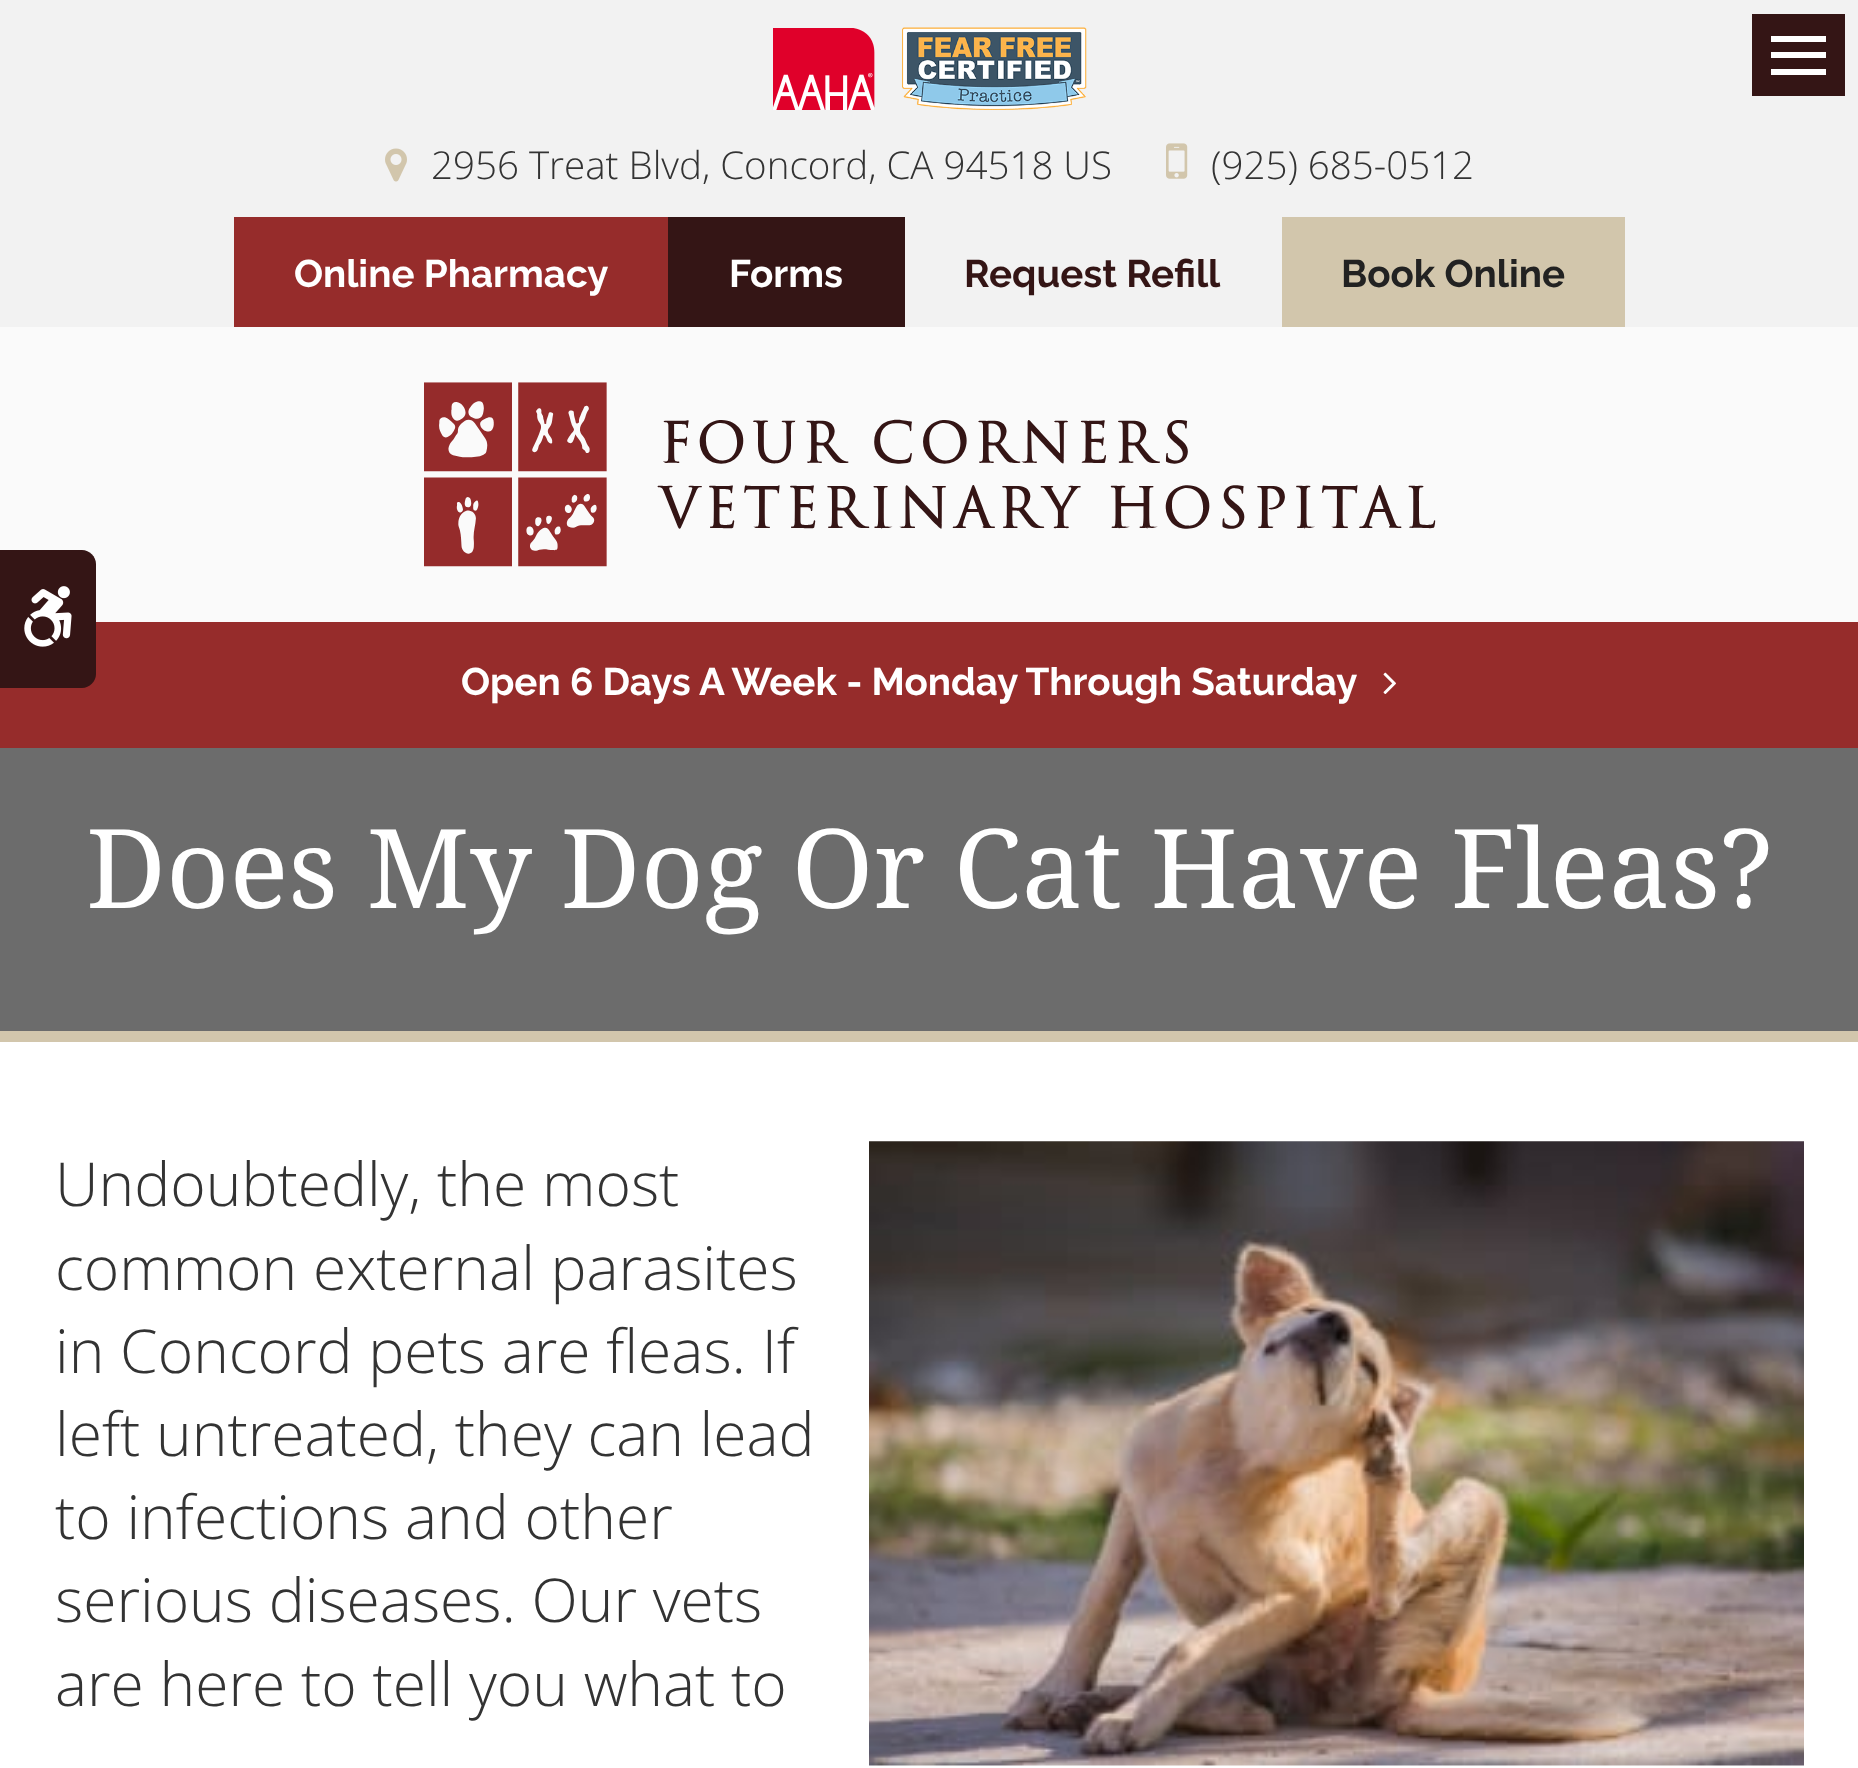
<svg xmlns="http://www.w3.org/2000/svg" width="1858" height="1768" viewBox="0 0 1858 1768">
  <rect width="100%" height="100%" fill="rgb(150,44,43)"/>
  <rect x="0" y="0" width="1858" height="327" fill="rgb(242,242,242)"/>
  <rect x="1752" y="14" width="93" height="82" fill="rgb(52,21,21)"/>
  <rect x="1771" y="36" width="55" height="6" fill="rgb(255,255,255)"/>
  <rect x="1771" y="52" width="55" height="6" fill="rgb(255,255,255)"/>
  <rect x="1771" y="69" width="55" height="6" fill="rgb(255,255,255)"/>
  <rect x="0" y="327" width="1858" height="295" fill="rgb(250,250,250)"/>
  <image x="773" y="28" width="102" height="82" href="pic1.png"/>
  <image x="902" y="27" width="185" height="83" href="pic2.png"/>
  <image x="385" y="148" width="22" height="34" href="pic3.png"/>
  <text x="431" y="179" font-family="Open Sans" font-size="38.5" font-weight="300" fill="rgb(51,51,51)">2956 Treat Blvd, Concord, CA 94518 US</text>
  <image x="1166" y="143" width="22" height="36" href="pic4.png"/>
  <text x="1211" y="179" font-family="Open Sans" font-size="38.5" font-weight="300" fill="rgb(51,51,51)">(925) 685-0512</text>
  <rect x="234" y="217" width="434" height="110" fill="rgb(150,44,43)"/>
  <text x="294" y="287" font-family="Raleway" font-size="38.5" font-weight="bold" fill="rgb(255,255,255)">Online Pharmacy</text>
  <rect x="668" y="217" width="237" height="110" fill="rgb(52,21,21)"/>
  <text x="729" y="287" font-family="Raleway" font-size="38.5" font-weight="bold" fill="rgb(255,255,255)">Forms</text>
  <text x="964" y="287" font-family="Raleway" font-size="38.5" font-weight="bold" fill="rgb(52,21,21)">Request Refill</text>
  <rect x="1282" y="217" width="343" height="110" fill="rgb(210,198,172)"/>
  <text x="1341" y="287" font-family="Raleway" font-size="38.5" font-weight="bold" fill="rgb(34,34,34)">Book Online</text>
  <image x="424" y="382" width="1012" height="185" href="pic5.png"/>
  <path d="M0 550H82C89.5 550 96 556.5 96 564V674C96 681.5 89.5 688 82 688H0Z" fill="rgb(52,21,21)"/>
  <image x="24" y="586" width="48" height="61" href="pic6.png"/>
  <text x="461" y="695" font-family="Raleway" font-size="38.5" font-weight="bold" fill="rgb(255,255,255)">Open 6 Days A Week - Monday Through Saturday</text>
  <image x="1383" y="672" width="13" height="22" href="pic7.png"/>
  <rect x="0" y="748" width="1858" height="283" fill="rgb(108,108,108)"/>
  <rect x="0" y="1031" width="1858" height="11" fill="rgb(210,198,172)"/>
  <text x="86" y="908" font-family="Noto Serif" font-size="110" fill="rgb(255,255,255)">Does My Dog Or Cat Have Fleas?</text>
  <rect x="0" y="1042" width="1858" height="726" fill="rgb(255,255,255)"/>
  <g font-family="Open Sans" font-size="60.5" font-weight="300" fill="rgb(51,51,51)">
    <text>
      <tspan x="55" y="1206">Undoubtedly, the most</tspan>
      <tspan x="55" y="1290">common external parasites</tspan>
      <tspan x="55" y="1373">in Concord pets are fleas. If</tspan>
      <tspan x="55" y="1456">left untreated, they can lead</tspan>
      <tspan x="55" y="1539">to infections and other</tspan>
      <tspan x="55" y="1622">serious diseases. Our vets</tspan>
      <tspan x="55" y="1706">are here to tell you what to</tspan>
    </text>
  </g>
  <image x="869" y="1141" width="935" height="625" href="pic8.png"/>
</svg>
